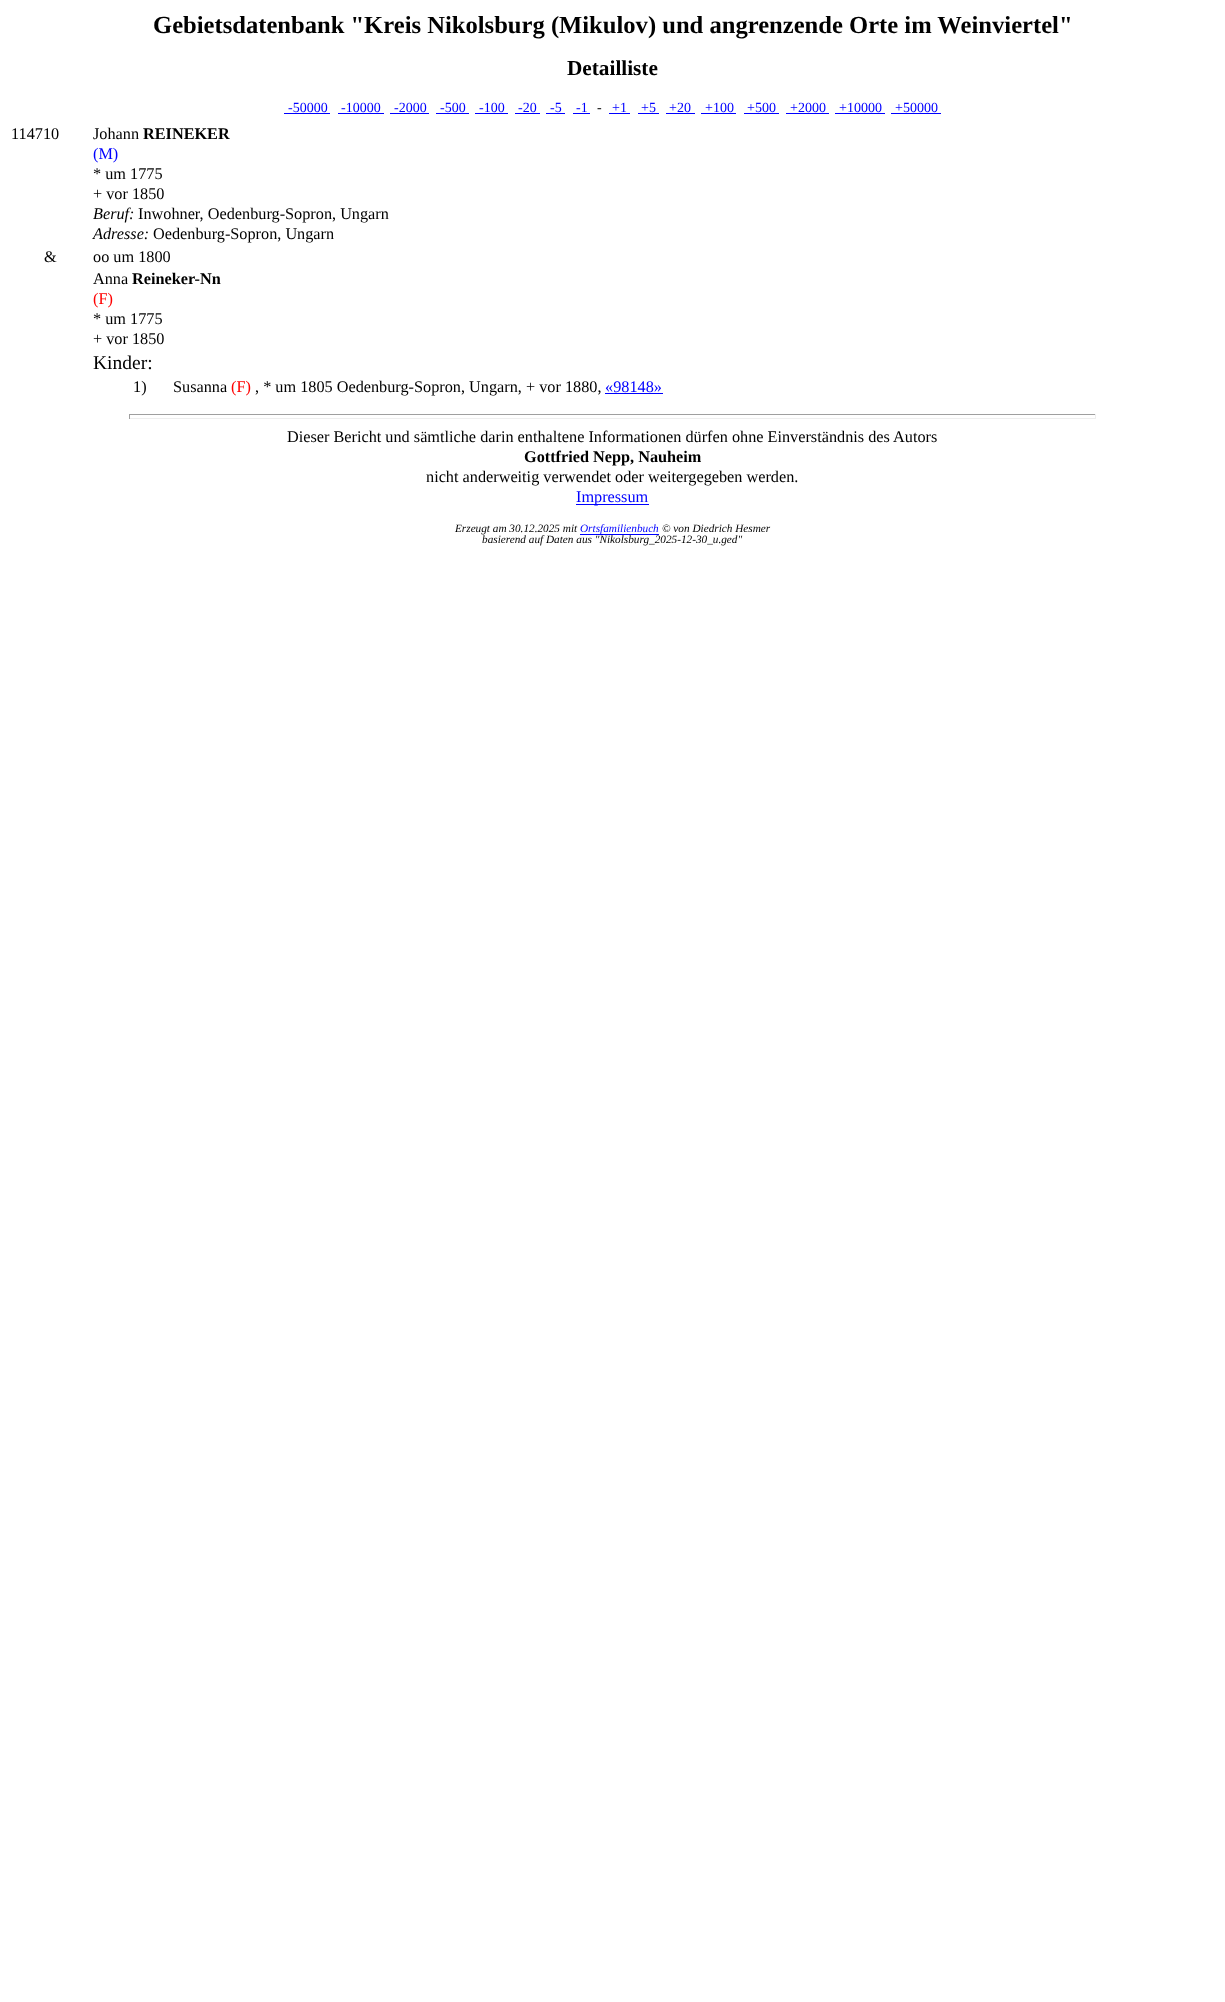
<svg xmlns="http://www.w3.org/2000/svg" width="1225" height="2002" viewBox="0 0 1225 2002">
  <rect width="100%" height="100%" fill="rgb(255,255,255)"/>
  <text x="153" y="33" font-family="Liberation Serif" font-size="24.6" font-weight="bold" fill="rgb(0,0,0)">Gebietsdatenbank "Kreis Nikolsburg (Mikulov) und angrenzende Orte im Weinviertel"</text>
  <text x="567" y="75" font-family="Liberation Serif" font-size="21.25" font-weight="bold" fill="rgb(0,0,0)">Detailliste</text>
  <text x="288" y="112" font-family="Liberation Serif" font-size="14" fill="rgb(0,0,255)">-50000</text>
  <rect x="284" y="113" width="46" height="1" fill="rgb(0,0,255)"/>
  <text x="341" y="112" font-family="Liberation Serif" font-size="14" fill="rgb(0,0,255)">-10000</text>
  <rect x="338" y="113" width="46" height="1" fill="rgb(0,0,255)"/>
  <text x="394" y="112" font-family="Liberation Serif" font-size="14" fill="rgb(0,0,255)">-2000</text>
  <rect x="390" y="113" width="39" height="1" fill="rgb(0,0,255)"/>
  <text x="440" y="112" font-family="Liberation Serif" font-size="14" fill="rgb(0,0,255)">-500</text>
  <rect x="436" y="113" width="33" height="1" fill="rgb(0,0,255)"/>
  <text x="479" y="112" font-family="Liberation Serif" font-size="14" fill="rgb(0,0,255)">-100</text>
  <rect x="475" y="113" width="33" height="1" fill="rgb(0,0,255)"/>
  <text x="518" y="112" font-family="Liberation Serif" font-size="14" fill="rgb(0,0,255)">-20</text>
  <rect x="515" y="113" width="25" height="1" fill="rgb(0,0,255)"/>
  <text x="550" y="112" font-family="Liberation Serif" font-size="14" fill="rgb(0,0,255)">-5</text>
  <rect x="546" y="113" width="19" height="1" fill="rgb(0,0,255)"/>
  <text x="576" y="112" font-family="Liberation Serif" font-size="14" fill="rgb(0,0,255)">-1</text>
  <rect x="573" y="113" width="17" height="1" fill="rgb(0,0,255)"/>
  <text x="597" y="112" font-family="Liberation Serif" font-size="14" fill="rgb(0,0,0)">-</text>
  <text x="612" y="112" font-family="Liberation Serif" font-size="14" fill="rgb(0,0,255)">+1</text>
  <rect x="609" y="113" width="21" height="1" fill="rgb(0,0,255)"/>
  <text x="641" y="112" font-family="Liberation Serif" font-size="14" fill="rgb(0,0,255)">+5</text>
  <rect x="638" y="113" width="21" height="1" fill="rgb(0,0,255)"/>
  <text x="669" y="112" font-family="Liberation Serif" font-size="14" fill="rgb(0,0,255)">+20</text>
  <rect x="666" y="113" width="29" height="1" fill="rgb(0,0,255)"/>
  <text x="705" y="112" font-family="Liberation Serif" font-size="14" fill="rgb(0,0,255)">+100</text>
  <rect x="701" y="113" width="35" height="1" fill="rgb(0,0,255)"/>
  <text x="747" y="112" font-family="Liberation Serif" font-size="14" fill="rgb(0,0,255)">+500</text>
  <rect x="744" y="113" width="35" height="1" fill="rgb(0,0,255)"/>
  <text x="790" y="112" font-family="Liberation Serif" font-size="14" fill="rgb(0,0,255)">+2000</text>
  <rect x="786" y="113" width="43" height="1" fill="rgb(0,0,255)"/>
  <text x="839" y="112" font-family="Liberation Serif" font-size="14" fill="rgb(0,0,255)">+10000</text>
  <rect x="835" y="113" width="50" height="1" fill="rgb(0,0,255)"/>
  <text x="895" y="112" font-family="Liberation Serif" font-size="14" fill="rgb(0,0,255)">+50000</text>
  <rect x="891" y="113" width="50" height="1" fill="rgb(0,0,255)"/>
  <g font-family="Liberation Serif" font-size="16.25" fill="rgb(0,0,0)">
    <text x="11" y="139">114710</text>
    <text x="93" y="139">Johann</text>
  </g>
  <text x="143" y="139" font-family="Liberation Serif" font-size="16.25" font-weight="bold" fill="rgb(0,0,0)">REINEKER</text>
  <text x="93" y="159" font-family="Liberation Serif" font-size="16.25" fill="rgb(0,0,255)">(M)</text>
  <g font-family="Liberation Serif" font-size="16.25" fill="rgb(0,0,0)">
    <text>
      <tspan x="93" y="179">* um 1775</tspan>
      <tspan x="93" y="199">+ vor 1850</tspan>
    </text>
  </g>
  <text x="93" y="219" font-family="Liberation Serif" font-size="16.25" font-style="italic" fill="rgb(0,0,0)">Beruf:</text>
  <text x="138" y="219" font-family="Liberation Serif" font-size="16.25" fill="rgb(0,0,0)">Inwohner, Oedenburg-Sopron, Ungarn</text>
  <text x="93" y="239" font-family="Liberation Serif" font-size="16.25" font-style="italic" fill="rgb(0,0,0)">Adresse:</text>
  <g font-family="Liberation Serif" font-size="16.25" fill="rgb(0,0,0)">
    <text x="153" y="239">Oedenburg-Sopron, Ungarn</text>
    <text x="44" y="262">&amp;</text>
    <text>
      <tspan x="93" y="262">oo um 1800</tspan>
      <tspan x="93" y="284">Anna</tspan>
    </text>
  </g>
  <text x="132" y="284" font-family="Liberation Serif" font-size="16.25" font-weight="bold" fill="rgb(0,0,0)">Reineker-Nn</text>
  <text x="93" y="304" font-family="Liberation Serif" font-size="16.25" fill="rgb(255,0,0)">(F)</text>
  <g font-family="Liberation Serif" font-size="16.25" fill="rgb(0,0,0)">
    <text>
      <tspan x="93" y="324">* um 1775</tspan>
      <tspan x="93" y="344">+ vor 1850</tspan>
    </text>
  </g>
  <text x="93" y="369" font-family="Liberation Serif" font-size="19.5" fill="rgb(0,0,0)">Kinder:</text>
  <g font-family="Liberation Serif" font-size="16.25" fill="rgb(0,0,0)">
    <text x="133" y="392">1)</text>
    <text x="173" y="392">Susanna</text>
  </g>
  <text x="231" y="392" font-family="Liberation Serif" font-size="16.25" fill="rgb(255,0,0)">(F)</text>
  <text x="255" y="392" font-family="Liberation Serif" font-size="16.25" fill="rgb(0,0,0)">, * um 1805 Oedenburg-Sopron, Ungarn, + vor 1880,</text>
  <text x="605" y="392" font-family="Liberation Serif" font-size="16.25" fill="rgb(0,0,255)">«98148»</text>
  <rect x="605" y="393" width="58" height="1" fill="rgb(0,0,255)"/>
  <rect x="129" y="414" width="967" height="1" fill="rgb(159,159,159)"/>
  <rect x="1095" y="414" width="1" height="5" fill="rgb(238,238,238)"/>
  <rect x="129" y="418" width="967" height="1" fill="rgb(238,238,238)"/>
  <rect x="129" y="414" width="1" height="5" fill="rgb(159,159,159)"/>
  <text x="287" y="442" font-family="Liberation Serif" font-size="16.25" fill="rgb(0,0,0)">Dieser Bericht und sämtliche darin enthaltene Informationen dürfen ohne Einverständnis des Autors</text>
  <text x="524" y="462" font-family="Liberation Serif" font-size="16.25" font-weight="bold" fill="rgb(0,0,0)">Gottfried Nepp, Nauheim</text>
  <text x="426" y="482" font-family="Liberation Serif" font-size="16.25" fill="rgb(0,0,0)">nicht anderweitig verwendet oder weitergegeben werden.</text>
  <rect x="576" y="504" width="73" height="1" fill="rgb(0,0,255)"/>
  <text x="576" y="502" font-family="Liberation Serif" font-size="16.25" fill="rgb(0,0,255)">Impressum</text>
  <text x="455" y="532" font-family="Liberation Serif" font-size="11.25" font-style="italic" fill="rgb(0,0,0)">Erzeugt am 30.12.2025 mit</text>
  <rect x="580" y="534" width="79" height="1" fill="rgb(0,0,255)"/>
  <text x="580" y="532" font-family="Liberation Serif" font-size="11.25" font-style="italic" fill="rgb(0,0,255)">Ortsfamilienbuch</text>
  <g font-family="Liberation Serif" font-size="11.25" font-style="italic" fill="rgb(0,0,0)">
    <text x="662" y="532">© von Diedrich Hesmer</text>
    <text x="482" y="543">basierend auf Daten aus "Nikolsburg_2025-12-30_u.ged"</text>
  </g>
</svg>
